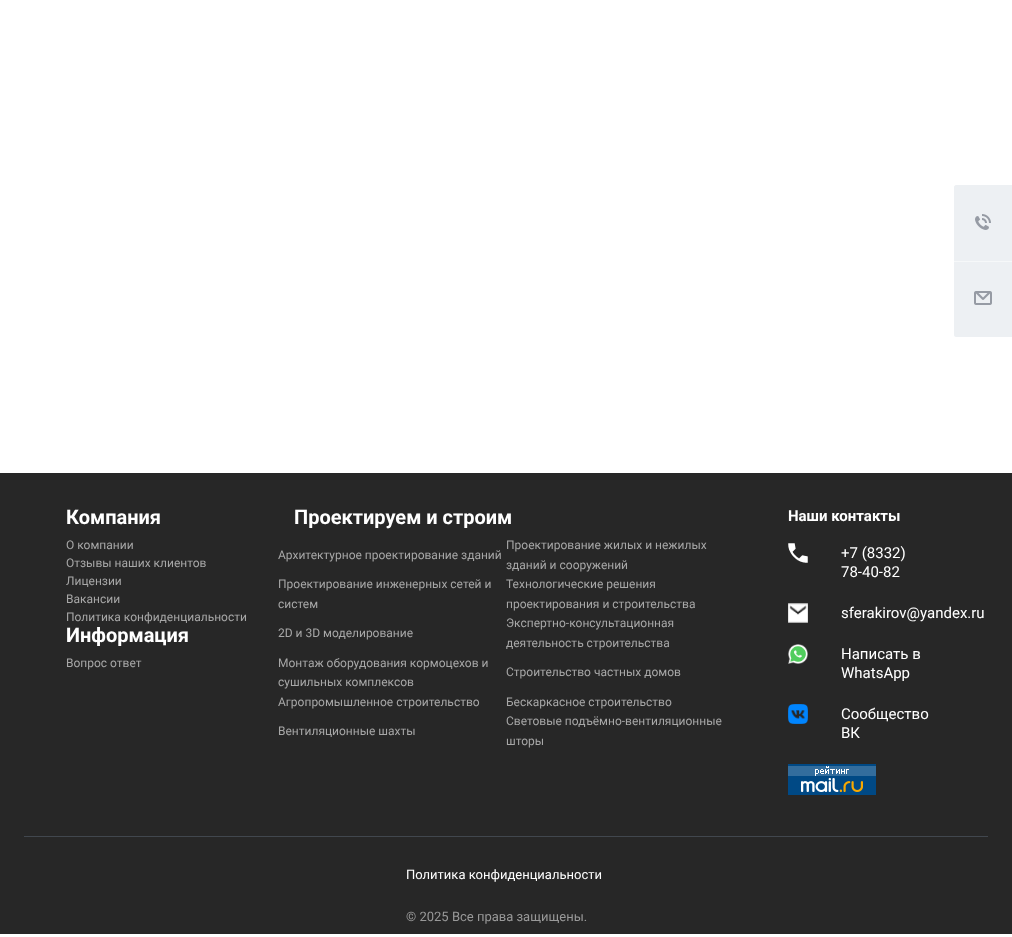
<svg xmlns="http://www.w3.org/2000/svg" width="1012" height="937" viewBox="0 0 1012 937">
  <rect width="100%" height="100%" fill="rgb(255,255,255)"/>
  <path d="M956 185H1012V261H954V187C954 186 955 185 956 185Z" fill="rgb(237,240,243)"/>
  <image x="975" y="214" width="16" height="16" href="pic1.png"/>
  <path d="M954 261H1012V337H956C955 337 954 336 954 335Z" fill="rgb(237,240,243)"/>
  <rect x="954" y="261" width="58" height="1" fill="rgb(246,248,249)"/>
  <image x="974" y="291" width="18" height="14" href="pic2.png"/>
  <rect x="0" y="473" width="1012" height="461" fill="rgb(39,39,39)"/>
  <text x="66" y="524" font-family="Roboto" font-size="20" font-weight="bold" fill="rgb(255,255,255)">Компания</text>
  <g font-family="Roboto" font-size="12" fill="rgb(167,167,167)">
    <text>
      <tspan x="66" y="549">О компании</tspan>
      <tspan x="66" y="567">Отзывы наших клиентов</tspan>
      <tspan x="66" y="585">Лицензии</tspan>
      <tspan x="66" y="603">Вакансии</tspan>
      <tspan x="66" y="621">Политика конфиденциальности</tspan>
    </text>
  </g>
  <text x="66" y="642" font-family="Roboto" font-size="20" font-weight="bold" fill="rgb(255,255,255)">Информация</text>
  <text x="66" y="667" font-family="Roboto" font-size="12" fill="rgb(167,167,167)">Вопрос ответ</text>
  <text x="294" y="524" font-family="Roboto" font-size="20" font-weight="bold" fill="rgb(255,255,255)">Проектируем и строим</text>
  <g font-family="Roboto" font-size="12" fill="rgb(167,167,167)">
    <text x="278" y="559">Архитектурное проектирование зданий</text>
    <text>
      <tspan x="506" y="549">Проектирование жилых и нежилых</tspan>
      <tspan x="506" y="569">зданий и сооружений</tspan>
    </text>
    <text>
      <tspan x="278" y="588">Проектирование инженерных сетей и</tspan>
      <tspan x="278" y="608">систем</tspan>
    </text>
    <text>
      <tspan x="506" y="588">Технологические решения</tspan>
      <tspan x="506" y="608">проектирования и строительства</tspan>
    </text>
    <text x="278" y="637">2D и 3D моделирование</text>
    <text>
      <tspan x="506" y="627">Экспертно-консультационная</tspan>
      <tspan x="506" y="647">деятельность строительства</tspan>
    </text>
    <text>
      <tspan x="278" y="667">Монтаж оборудования кормоцехов и</tspan>
      <tspan x="278" y="686">сушильных комплексов</tspan>
    </text>
    <text x="506" y="676">Строительство частных домов</text>
    <text x="278" y="706">Агропромышленное строительство</text>
    <text x="506" y="706">Бескаркасное строительство</text>
    <text x="278" y="735">Вентиляционные шахты</text>
    <text>
      <tspan x="506" y="725">Световые подъёмно-вентиляционные</tspan>
      <tspan x="506" y="745">шторы</tspan>
    </text>
  </g>
  <text x="788" y="521" font-family="Roboto" font-size="15" font-weight="bold" fill="rgb(255,255,255)">Наши контакты</text>
  <image x="788" y="543" width="20" height="20" href="pic3.png"/>
  <g font-family="Roboto" font-size="15" fill="rgb(255,255,255)">
    <text>
      <tspan x="841" y="558">+7 (8332)</tspan>
      <tspan x="841" y="577">78-40-82</tspan>
    </text>
  </g>
  <image x="788" y="603" width="20" height="20" href="pic4.png"/>
  <text x="841" y="618" font-family="Roboto" font-size="15" fill="rgb(255,255,255)">sferakirov@yandex.ru</text>
  <image x="788" y="644" width="20" height="20" href="pic5.png"/>
  <g font-family="Roboto" font-size="15" fill="rgb(255,255,255)">
    <text>
      <tspan x="841" y="659">Написать в</tspan>
      <tspan x="841" y="678">WhatsApp</tspan>
    </text>
  </g>
  <image x="788" y="704" width="20" height="20" href="pic6.png"/>
  <g font-family="Roboto" font-size="15" fill="rgb(255,255,255)">
    <text>
      <tspan x="841" y="719">Сообщество</tspan>
      <tspan x="841" y="738">ВК</tspan>
    </text>
  </g>
  <image x="788" y="764" width="88" height="31" href="pic7.png"/>
  <rect x="24" y="836" width="964" height="1" fill="rgb(65,71,78)"/>
  <text x="406" y="879" font-family="Roboto" font-size="13" fill="rgb(255,255,255)">Политика конфиденциальности</text>
  <text x="406" y="921" font-family="Roboto" font-size="13" fill="rgb(153,153,153)">© 2025 Все права защищены.</text>
</svg>
